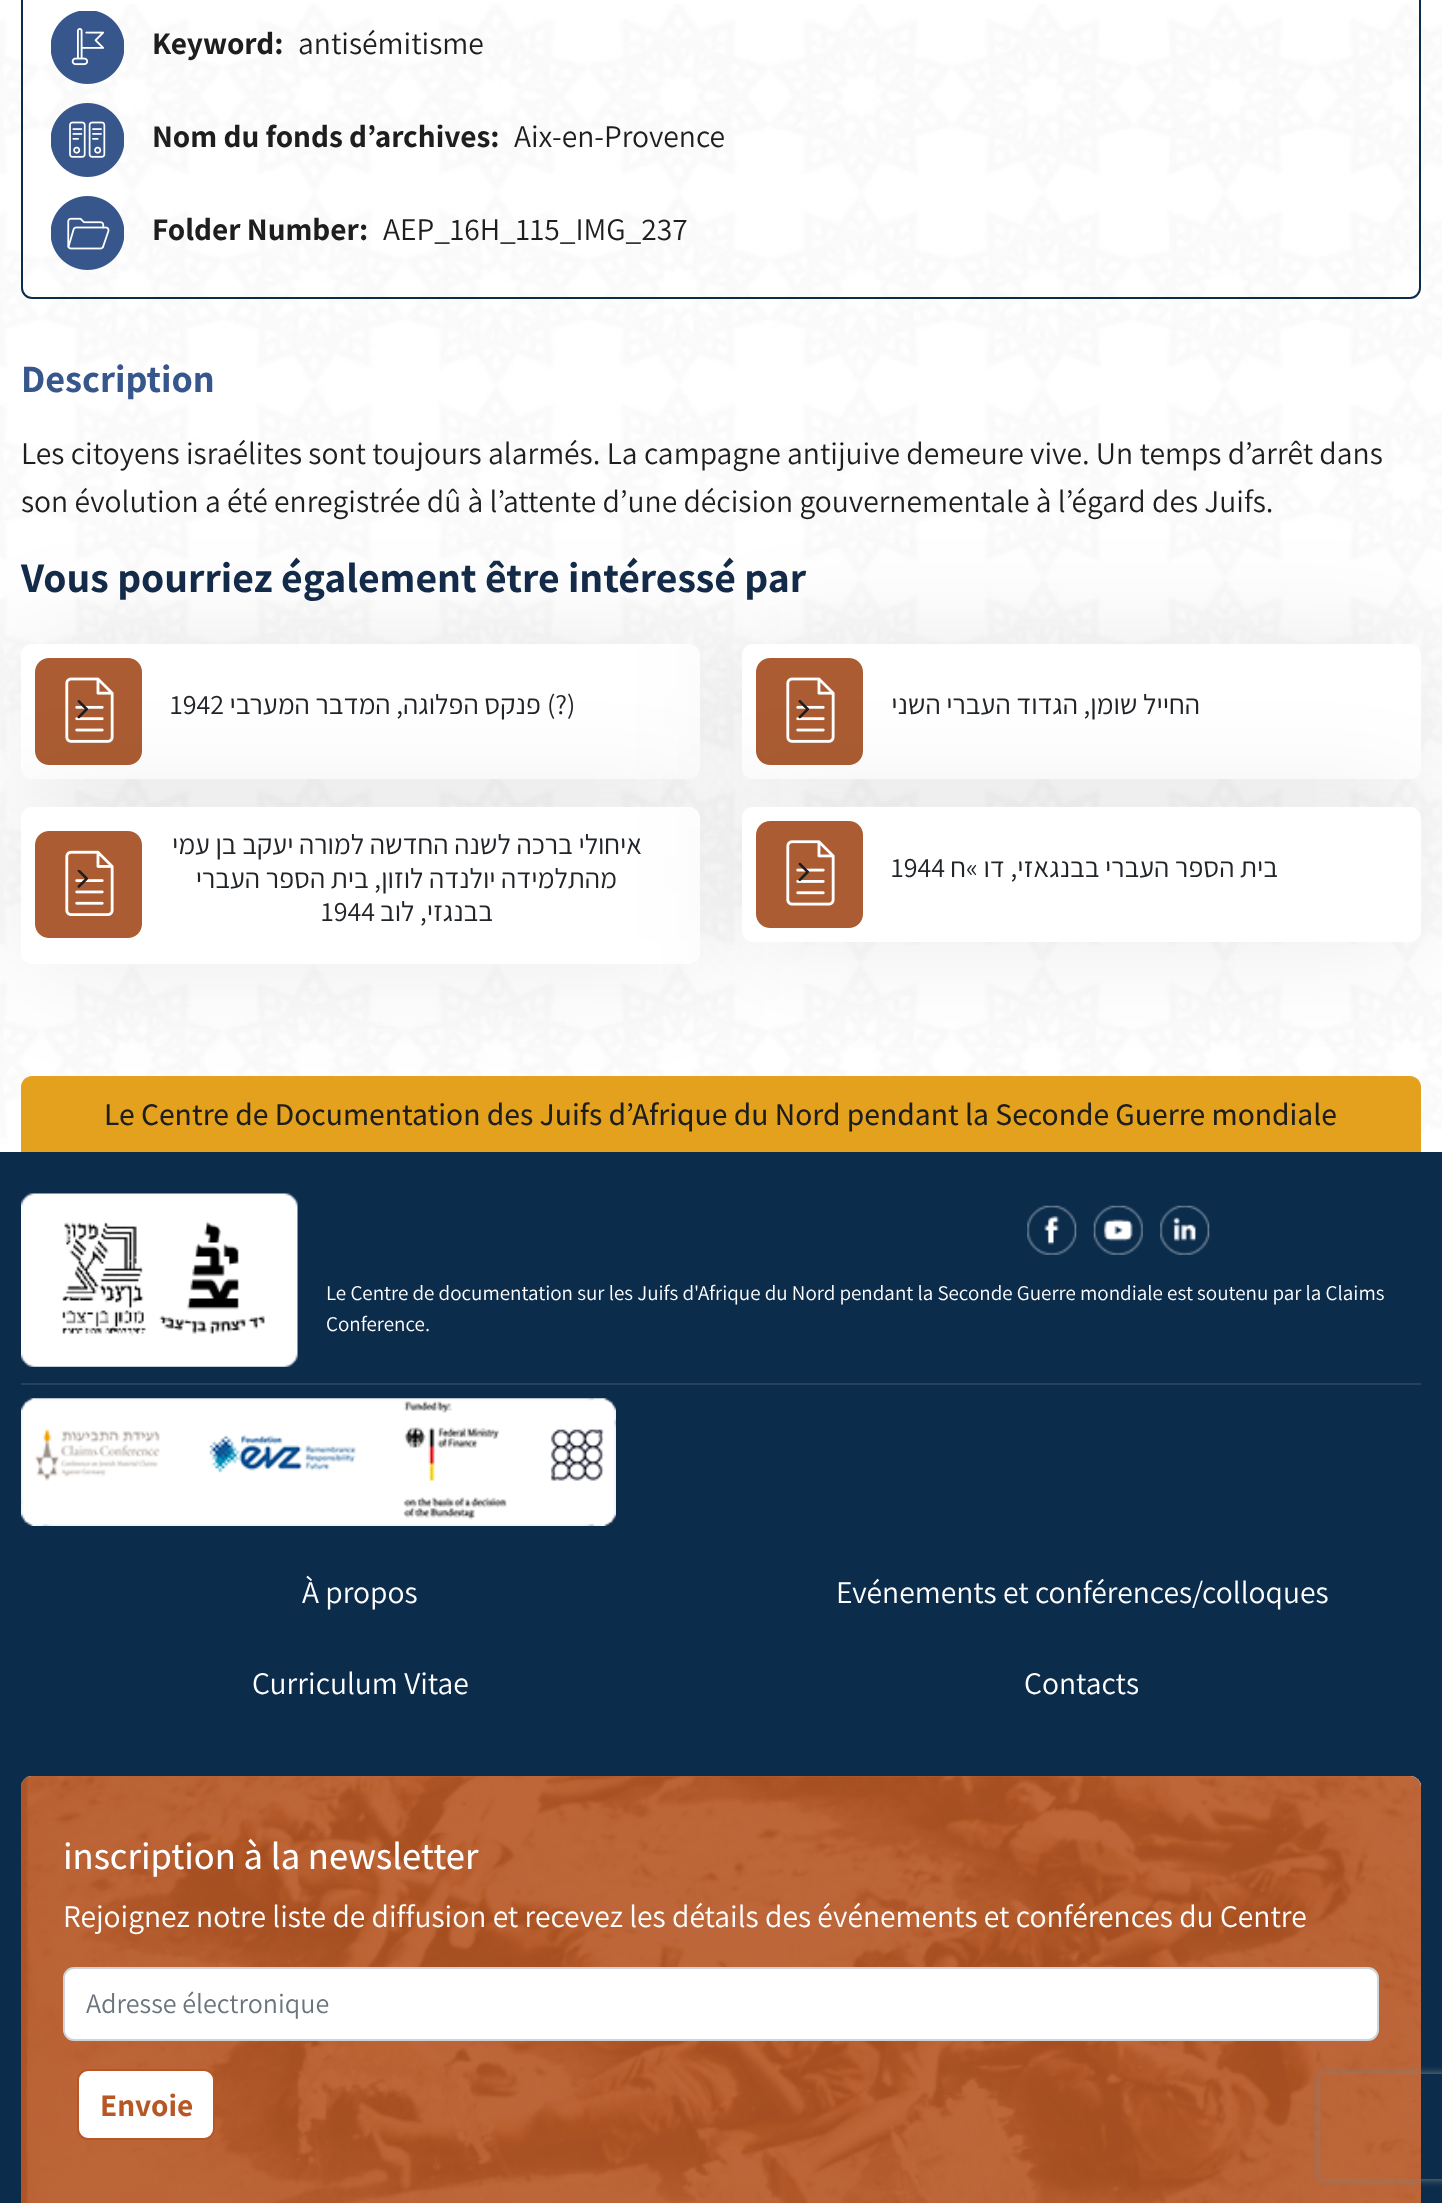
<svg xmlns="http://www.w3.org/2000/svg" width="1442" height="2203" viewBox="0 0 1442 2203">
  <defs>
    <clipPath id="clip1"><path d="M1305 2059H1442V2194H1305ZM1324 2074H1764C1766 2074 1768 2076 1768 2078V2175C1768 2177 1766 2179 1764 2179H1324C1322 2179 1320 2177 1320 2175V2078C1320 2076 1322 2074 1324 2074Z" clip-rule="evenodd"/></clipPath>
  </defs>
  <rect width="100%" height="100%" fill="rgb(255,255,255)"/>
  <image x="0" y="4" width="1442" height="1148" href="pic1.png"/>
  <rect x="22" y="-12" width="1398" height="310" rx="10" fill="none" stroke="rgb(12,44,76)" stroke-width="2"/>
  <image x="51" y="11" width="73" height="73" href="pic2.png"/>
  <text x="152" y="54" font-family="Assistant" font-size="31.5" font-weight="bold" fill="rgb(30,30,30)">Keyword:</text>
  <text x="298" y="54" font-family="Assistant" font-size="31.5" fill="rgb(30,30,30)">antisémitisme</text>
  <image x="51" y="103" width="73" height="74" href="pic3.png"/>
  <text x="152" y="147" font-family="Assistant" font-size="31.5" font-weight="bold" fill="rgb(30,30,30)">Nom du fonds d’archives:</text>
  <text x="514" y="147" font-family="Assistant" font-size="31.5" fill="rgb(30,30,30)">Aix-en-Provence</text>
  <image x="51" y="196" width="73" height="74" href="pic4.png"/>
  <text x="152" y="240" font-family="Assistant" font-size="31.5" font-weight="bold" fill="rgb(30,30,30)">Folder Number:</text>
  <text x="383" y="240" font-family="Assistant" font-size="31.5" fill="rgb(30,30,30)">AEP_16H_115_IMG_237</text>
  <text x="21" y="392" font-family="Assistant" font-size="38.5" font-weight="bold" fill="rgb(55,86,140)">Description</text>
  <g font-family="Assistant" font-size="31.5" fill="rgb(30,30,30)">
    <text>
      <tspan x="21" y="464">Les citoyens israélites sont toujours alarmés. La campagne antijuive demeure vive. Un temps d’arrêt dans</tspan>
      <tspan x="21" y="512">son évolution a été enregistrée dû à l’attente d’une décision gouvernementale à l’égard des Juifs.</tspan>
    </text>
  </g>
  <text x="21" y="592" font-family="Assistant" font-size="42" font-weight="bold" fill="rgb(20,44,74)">Vous pourriez également être intéressé par</text>
  <rect x="21" y="644" width="679" height="135" rx="11" fill="rgba(0,0,0,0.08)" filter="blur(58px)"/>
  <rect x="21" y="644" width="679" height="135" rx="11" fill="rgb(255,255,255)"/>
  <image x="35" y="658" width="107" height="107" href="pic5.png"/>
  <image x="77" y="700" width="11" height="19" href="pic6.png"/>
  <text x="170" y="714" font-family="Assistant" font-size="28" fill="rgb(33,37,41)">1942</text>
  <text x="541" y="714" font-family="Assistant" font-size="28" direction="rtl" fill="rgb(33,37,41)">פנקס הפלוגה, המדבר המערבי</text>
  <text x="547" y="714" font-family="Assistant" font-size="28" fill="rgb(33,37,41)">(?)</text>
  <rect x="742" y="644" width="679" height="135" rx="11" fill="rgba(0,0,0,0.08)" filter="blur(58px)"/>
  <rect x="742" y="644" width="679" height="135" rx="11" fill="rgb(255,255,255)"/>
  <image x="756" y="658" width="107" height="107" href="pic5.png"/>
  <image x="798" y="700" width="11" height="19" href="pic6.png"/>
  <text x="1200" y="714" font-family="Assistant" font-size="28" direction="rtl" fill="rgb(33,37,41)">החייל שומן, הגדוד העברי השני</text>
  <path d="M32 1076H1410C1416 1076 1421 1081 1421 1087V1152H21V1087C21 1081 26 1076 32 1076Z" fill="rgb(227,161,29)"/>
  <rect x="21" y="807" width="679" height="157" rx="11" fill="rgba(0,0,0,0.08)" filter="blur(58px)"/>
  <rect x="21" y="807" width="679" height="157" rx="11" fill="rgb(255,255,255)"/>
  <image x="35" y="831" width="107" height="107" href="pic7.png"/>
  <image x="77" y="870" width="11" height="18" href="pic8.png"/>
  <g font-family="Assistant" font-size="28" direction="rtl" fill="rgb(33,37,41)">
    <text x="642" y="854">איחולי ברכה לשנה החדשה למורה יעקב בן עמי</text>
    <text x="617" y="888">מהתלמידה יולנדה לוזון, בית הספר העברי</text>
  </g>
  <text x="321" y="921" font-family="Assistant" font-size="28" fill="rgb(33,37,41)">1944</text>
  <text x="493" y="921" font-family="Assistant" font-size="28" direction="rtl" fill="rgb(33,37,41)">בבנגזי, לוב</text>
  <rect x="742" y="807" width="679" height="135" rx="11" fill="rgba(0,0,0,0.08)" filter="blur(58px)"/>
  <rect x="742" y="807" width="679" height="135" rx="11" fill="rgb(255,255,255)"/>
  <image x="756" y="821" width="107" height="107" href="pic9.png"/>
  <image x="798" y="862" width="11" height="20" href="pic10.png"/>
  <text x="891" y="877" font-family="Assistant" font-size="28" fill="rgb(33,37,41)">1944</text>
  <text x="1278" y="877" font-family="Assistant" font-size="28" direction="rtl" fill="rgb(33,37,41)">בית הספר העברי בבנגאזי, דו »ח</text>
  <text x="104" y="1125" font-family="Assistant" font-size="31.5" font-weight="500" fill="rgb(30,30,30)">Le Centre de Documentation des Juifs d’Afrique du Nord pendant la Seconde Guerre mondiale</text>
  <rect x="0" y="1152" width="1442" height="1051" fill="rgb(12,44,76)"/>
  <rect x="21" y="1383" width="1400" height="2" fill="rgb(36,65,94)"/>
  <image x="21" y="1193" width="277" height="174" href="pic11.png"/>
  <g font-family="Assistant" font-size="21" fill="rgb(255,255,255)">
    <text>
      <tspan x="326" y="1300">Le Centre de documentation sur les Juifs d'Afrique du Nord pendant la Seconde Guerre mondiale est soutenu par la Claims</tspan>
      <tspan x="326" y="1331">Conference.</tspan>
    </text>
  </g>
  <image x="21" y="1398" width="595" height="128" href="pic12.png"/>
  <image x="1027" y="1205" width="50" height="50" href="pic13.png"/>
  <image x="1093" y="1205" width="50" height="50" href="pic14.png"/>
  <image x="1160" y="1205" width="50" height="50" href="pic15.png"/>
  <g font-family="Assistant" font-size="31.5" fill="rgb(255,255,255)">
    <text x="302" y="1603">À propos</text>
    <text x="836" y="1603">Evénements et conférences/colloques</text>
    <text x="252" y="1694">Curriculum Vitae</text>
    <text x="1024" y="1694">Contacts</text>
  </g>
  <rect x="21" y="1776" width="1400" height="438" rx="11" fill="rgb(255,255,255)"/>
  <image x="21" y="1776" width="1400" height="427" href="pic16.png"/>
  <rect x="21" y="1776" width="1400" height="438" rx="11" fill="rgba(183,87,37,0.9)"/>
  <text x="63" y="1869" font-family="Assistant" font-size="38.5" font-weight="500" fill="rgb(255,255,255)">inscription à la newsletter</text>
  <text x="63" y="1927" font-family="Assistant" font-size="31.5" fill="rgb(255,255,255)">Rejoignez notre liste de diffusion et recevez les détails des événements et conférences du Centre</text>
  <rect x="64" y="1968" width="1314" height="72" rx="10" fill="rgb(255,255,255)" stroke="rgb(206,212,218)" stroke-width="2"/>
  <text x="86" y="2013" font-family="Assistant" font-size="28" fill="rgb(108,117,125)">Adresse électronique</text>
  <rect x="78" y="2070" width="136" height="69" rx="10" fill="rgb(255,255,255)" stroke="rgb(183,87,37)" stroke-width="2"/>
  <text x="100" y="2116" font-family="Assistant" font-size="31.5" font-weight="bold" fill="rgb(183,87,37)">Envoie</text>
  <g clip-path="url(#clip1)">
    <rect x="1320" y="2074" width="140" height="105" rx="4" fill="rgb(128,128,128)" filter="blur(4.5px)"/>
  </g>
</svg>
